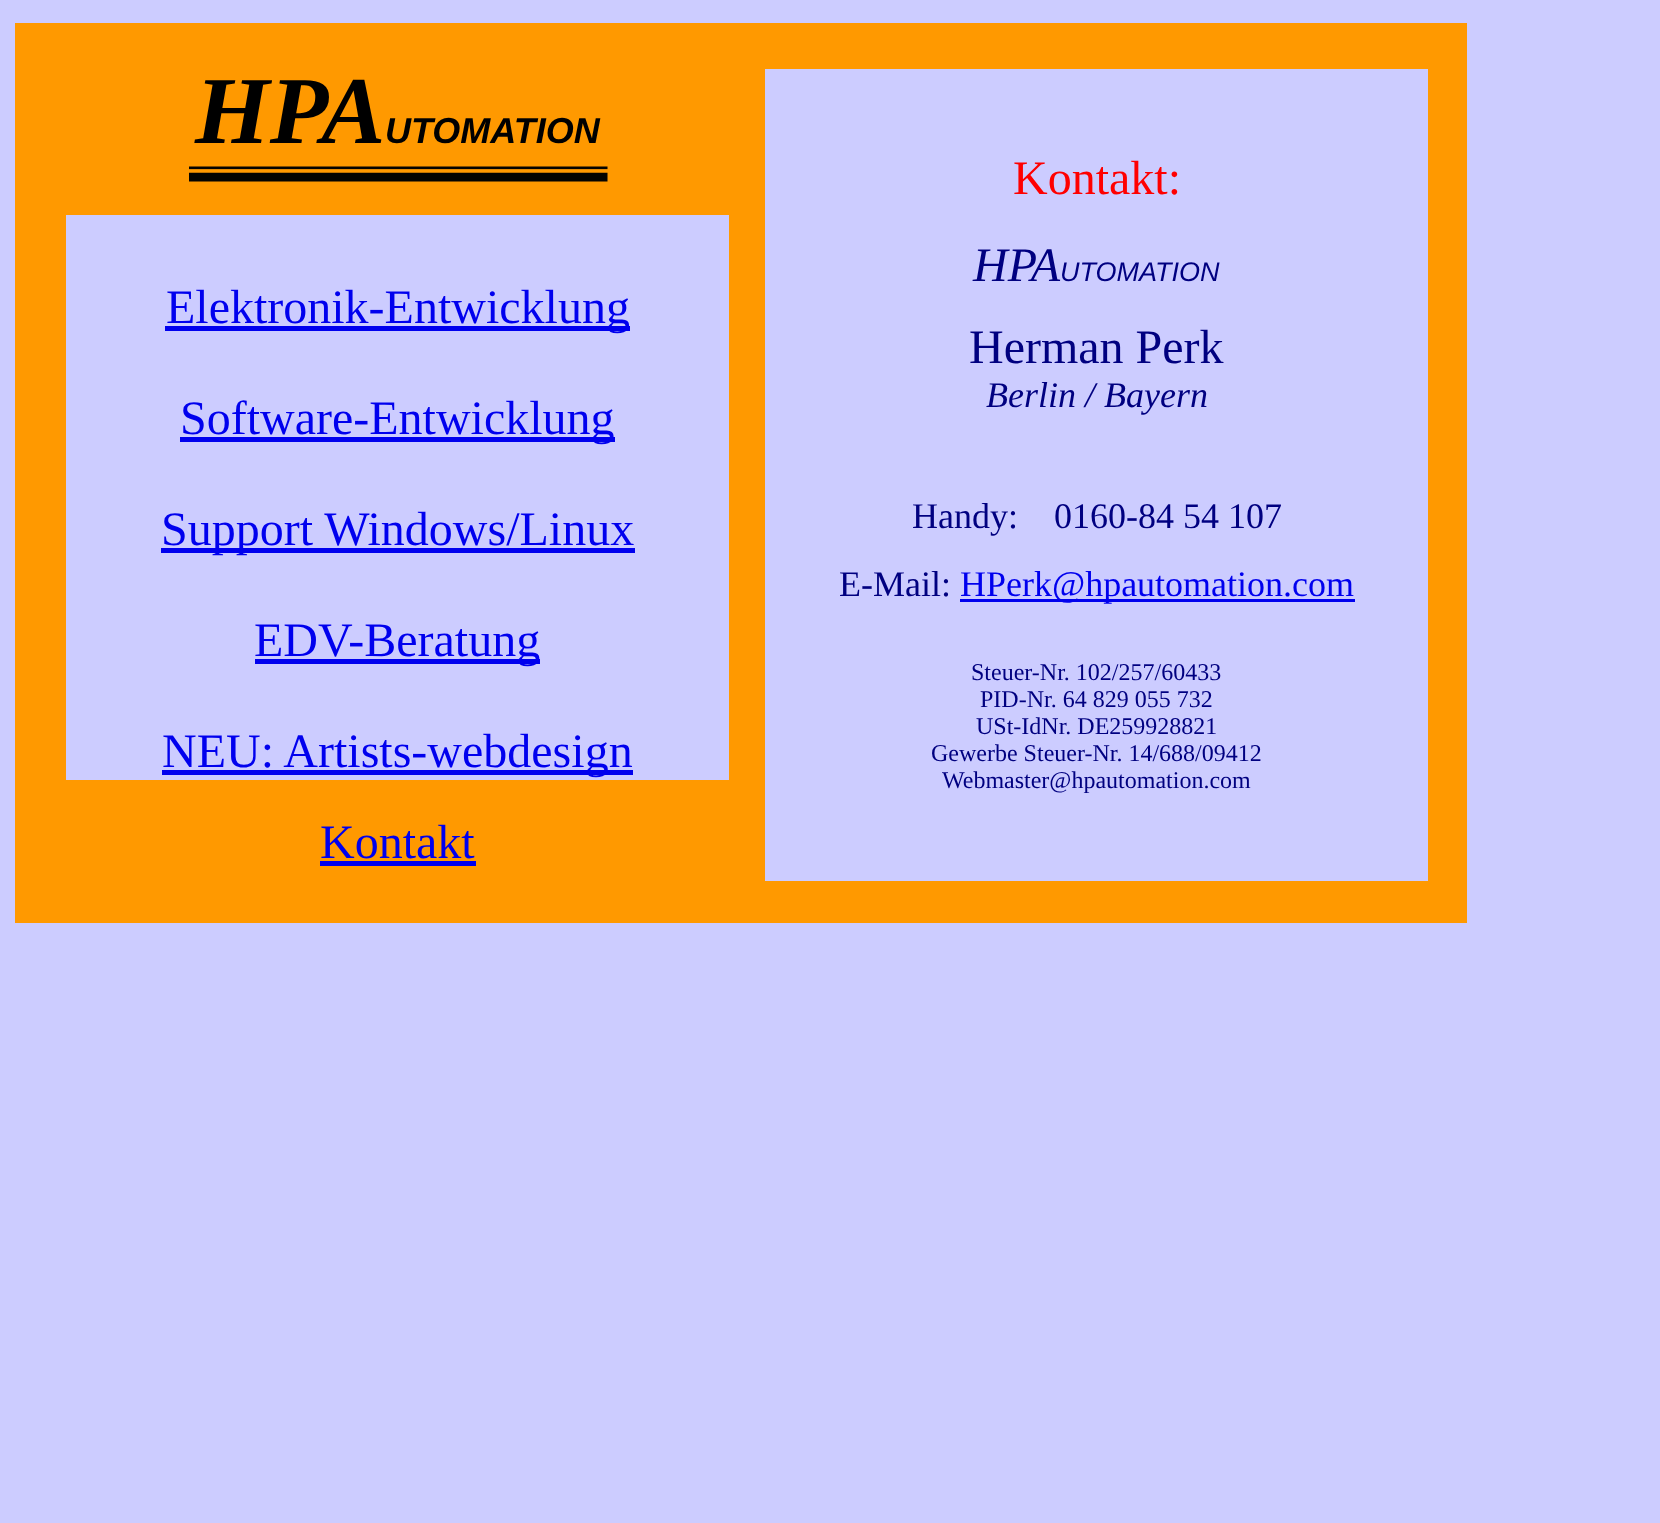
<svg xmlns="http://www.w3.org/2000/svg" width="1660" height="1523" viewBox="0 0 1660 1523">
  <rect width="100%" height="100%" fill="rgb(204,204,255)"/>
  <rect x="15" y="23" width="1452" height="900" fill="rgb(255,153,0)"/>
  <text x="195" y="143" font-family="Liberation Serif" font-size="96" font-weight="bold" font-style="italic" fill="rgb(0,0,0)">HPA</text>
  <text x="385" y="143" font-family="Liberation Sans" font-size="36" font-weight="bold" font-style="italic" fill="rgb(0,0,0)">UTOMATION</text>
  <image x="189" y="166" width="419" height="16" href="pic1.png"/>
  <rect x="66" y="215" width="663" height="565" fill="rgb(204,204,255)"/>
  <rect x="165" y="326" width="465" height="5" fill="rgb(0,0,238)"/>
  <text x="166" y="323" font-family="Liberation Serif" font-size="48" fill="rgb(0,0,238)">Elektronik-Entwicklung</text>
  <rect x="180" y="437" width="435" height="5" fill="rgb(0,0,238)"/>
  <text x="180" y="434" font-family="Liberation Serif" font-size="48" fill="rgb(0,0,238)">Software-Entwicklung</text>
  <rect x="161" y="548" width="474" height="5" fill="rgb(0,0,238)"/>
  <text x="161" y="545" font-family="Liberation Serif" font-size="48" fill="rgb(0,0,238)">Support Windows/Linux</text>
  <rect x="255" y="659" width="285" height="5" fill="rgb(0,0,238)"/>
  <text x="254" y="656" font-family="Liberation Serif" font-size="48" fill="rgb(0,0,238)">EDV-Beratung</text>
  <rect x="162" y="770" width="471" height="5" fill="rgb(0,0,238)"/>
  <text x="162" y="767" font-family="Liberation Serif" font-size="48" fill="rgb(0,0,238)">NEU: Artists-webdesign</text>
  <rect x="765" y="69" width="663" height="812" fill="rgb(204,204,255)"/>
  <text x="1013" y="194" font-family="Liberation Serif" font-size="48" fill="rgb(255,0,0)">Kontakt:</text>
  <text x="973" y="281" font-family="Liberation Serif" font-size="48" font-style="italic" fill="rgb(0,0,128)">HPA</text>
  <text x="1060" y="281" font-family="Liberation Sans" font-size="27" font-style="italic" fill="rgb(0,0,128)">UTOMATION</text>
  <text x="969" y="363" font-family="Liberation Serif" font-size="48" fill="rgb(0,0,128)">Herman Perk</text>
  <text x="986" y="407" font-family="Liberation Serif" font-size="36" font-style="italic" fill="rgb(0,0,128)">Berlin / Bayern</text>
  <g font-family="Liberation Serif" font-size="36" fill="rgb(0,0,128)">
    <text x="912" y="528" xml:space="preserve">Handy:    0160-84 54 107</text>
    <text x="839" y="596">E-Mail:</text>
  </g>
  <rect x="960" y="599" width="395" height="3" fill="rgb(0,0,238)"/>
  <text x="960" y="596" font-family="Liberation Serif" font-size="36" fill="rgb(0,0,238)">HPerk@hpautomation.com</text>
  <g font-family="Liberation Serif" font-size="24" fill="rgb(0,0,128)">
    <text x="971" y="680">Steuer-Nr. 102/257/60433</text>
    <text x="980" y="707">PID-Nr. 64 829 055 732</text>
    <text x="976" y="734">USt-IdNr. DE259928821</text>
    <text x="931" y="761">Gewerbe Steuer-Nr. 14/688/09412</text>
    <text x="942" y="788">Webmaster@hpautomation.com</text>
  </g>
  <text x="320" y="858" font-family="Liberation Serif" font-size="48" fill="rgb(0,0,238)">Kontakt</text>
  <rect x="320" y="861" width="156" height="5" fill="rgb(0,0,238)"/>
</svg>
